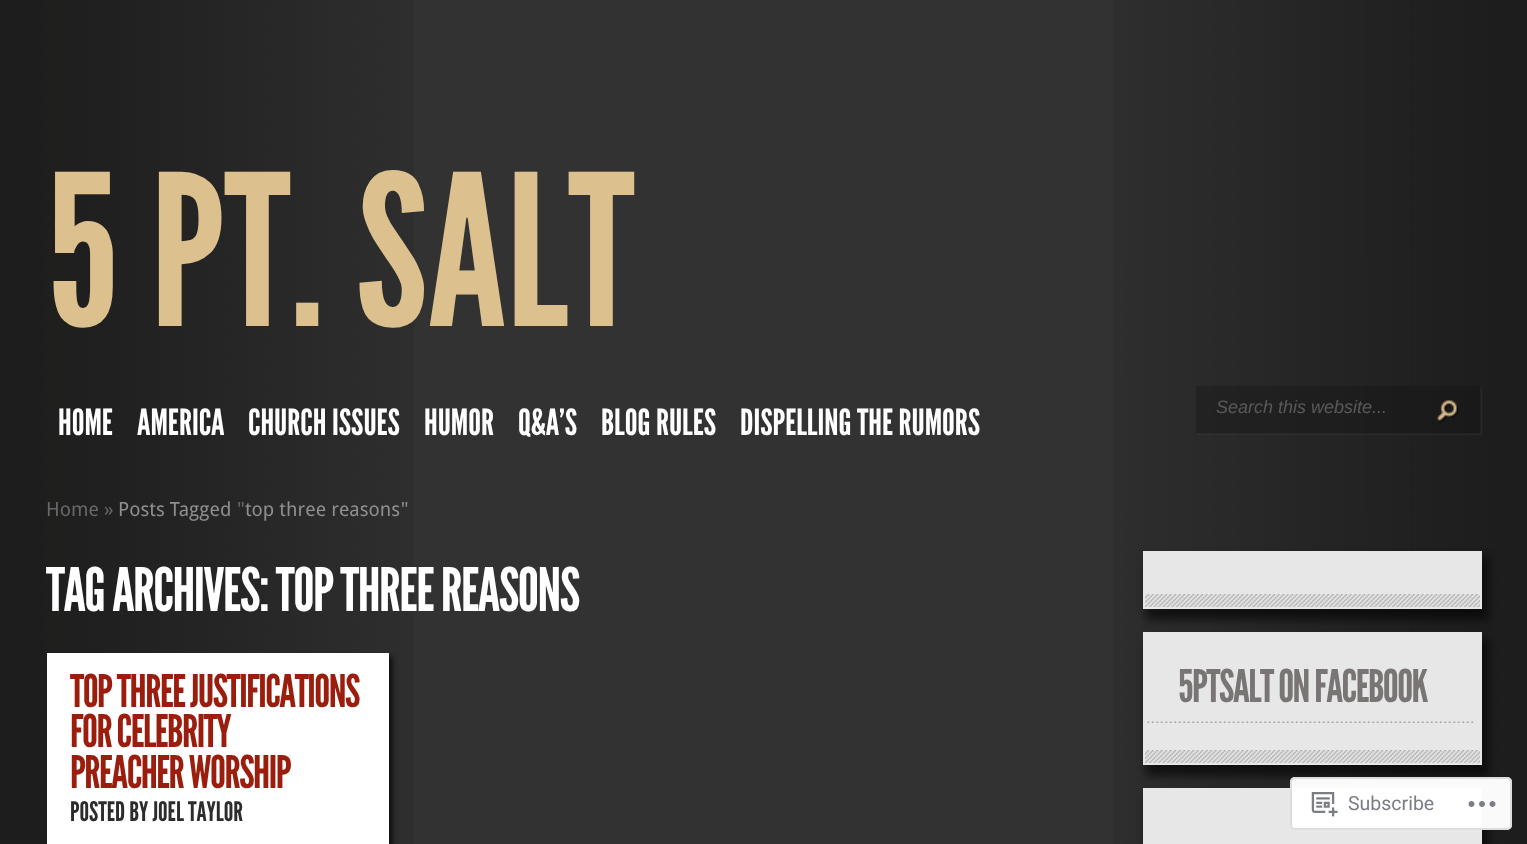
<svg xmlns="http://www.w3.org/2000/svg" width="1527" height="844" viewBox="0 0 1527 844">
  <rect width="100%" height="100%" fill="rgb(50,50,50)"/>
  <image x="0" y="0" width="414" height="844" href="pic1.png"/>
  <image x="1113" y="0" width="414" height="844" href="pic2.png"/>
  <text x="46" y="326" font-family="League Gothic" font-size="210" fill="rgb(220,192,142)">5 PT. SALT</text>
  <image x="1196" y="386" width="286" height="49" href="pic3.png"/>
  <text x="1216" y="413" font-family="Liberation Sans" font-size="18" font-style="italic" fill="rgb(89,89,89)">Search this website...</text>
  <image x="1437" y="400" width="21" height="22" href="pic4.png"/>
  <g font-family="League Gothic" font-size="36" fill="rgb(255,255,255)">
    <text x="58" y="435">HOME</text>
    <text x="137" y="435">AMERICA</text>
    <text x="248" y="435">CHURCH ISSUES</text>
    <text x="424" y="435">HUMOR</text>
    <text x="518" y="435">Q&amp;A’S</text>
    <text x="601" y="435">BLOG RULES</text>
    <text x="740" y="435">DISPELLING THE RUMORS</text>
  </g>
  <text x="46" y="516" font-family="Droid Sans" font-size="19.5" fill="rgb(104,103,103)">Home »</text>
  <text x="118" y="516" font-family="Droid Sans" font-size="19.5" fill="rgb(142,142,142)">Posts Tagged</text>
  <text x="237" y="516" font-family="Droid Sans" font-size="19.5" fill="rgb(104,103,103)">"</text>
  <text x="245" y="516" font-family="Droid Sans" font-size="19.5" fill="rgb(142,142,142)">top three reasons"</text>
  <text x="46" y="611" font-family="League Gothic" font-size="60" letter-spacing="-1.5" fill="rgb(255,255,255)">TAG ARCHIVES: TOP THREE REASONS</text>
  <rect x="51" y="657" width="342" height="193" fill="rgba(0,0,0,0.6)" filter="blur(2px)"/>
  <rect x="47" y="653" width="342" height="191" fill="rgb(255,255,255)"/>
  <g font-family="League Gothic" font-size="45" letter-spacing="-1.5" fill="rgb(154,29,13)">
    <text>
      <tspan x="70" y="707">TOP THREE JUSTIFICATIONS</tspan>
      <tspan x="70" y="747">FOR CELEBRITY</tspan>
      <tspan x="70" y="788">PREACHER WORSHIP</tspan>
    </text>
  </g>
  <text x="70" y="821" font-family="League Gothic" font-size="27" fill="rgb(44,44,44)">POSTED BY JOEL TAYLOR</text>
  <rect x="1146" y="558" width="342" height="62" fill="rgba(0,0,0,0.6)" filter="blur(5px)"/>
  <rect x="1145" y="553" width="335" height="54" fill="rgb(231,231,231)"/>
  <image x="1145" y="594" width="335" height="13" href="pic5.png"/>
  <rect x="1144" y="552" width="337" height="56" fill="none" stroke="rgb(231,231,231)" stroke-width="2"/>
  <rect x="1146" y="795" width="342" height="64" fill="rgba(0,0,0,0.6)" filter="blur(5px)"/>
  <rect x="1143" y="788" width="339" height="56" fill="rgb(231,231,231)"/>
  <rect x="1146" y="639" width="342" height="137" fill="rgba(0,0,0,0.6)" filter="blur(5px)"/>
  <rect x="1145" y="634" width="335" height="129" fill="rgb(231,231,231)"/>
  <image x="1145" y="750" width="335" height="13" href="pic5.png"/>
  <rect x="1144" y="633" width="337" height="131" fill="none" stroke="rgb(231,231,231)" stroke-width="2"/>
  <image x="1144" y="721" width="329" height="2" href="pic6.png"/>
  <text x="1178" y="702" font-family="League Gothic" font-size="45" letter-spacing="-1.5" fill="rgb(122,117,117)">5PTSALT ON FACEBOOK</text>
  <rect x="1290" y="777" width="222" height="53" rx="5" fill="rgba(255,255,255,0.98)"/>
  <rect x="1291" y="778" width="220" height="51" rx="4" fill="none" stroke="rgba(220,220,222,0.98)" stroke-width="2"/>
  <image x="1311" y="792" width="27" height="25" href="pic7.png"/>
  <text x="1348" y="810" font-family="Roboto" font-size="19.5" fill="rgb(122,126,132)">Subscribe</text>
  <image x="1468" y="801" width="28" height="6" href="pic8.png"/>
</svg>
